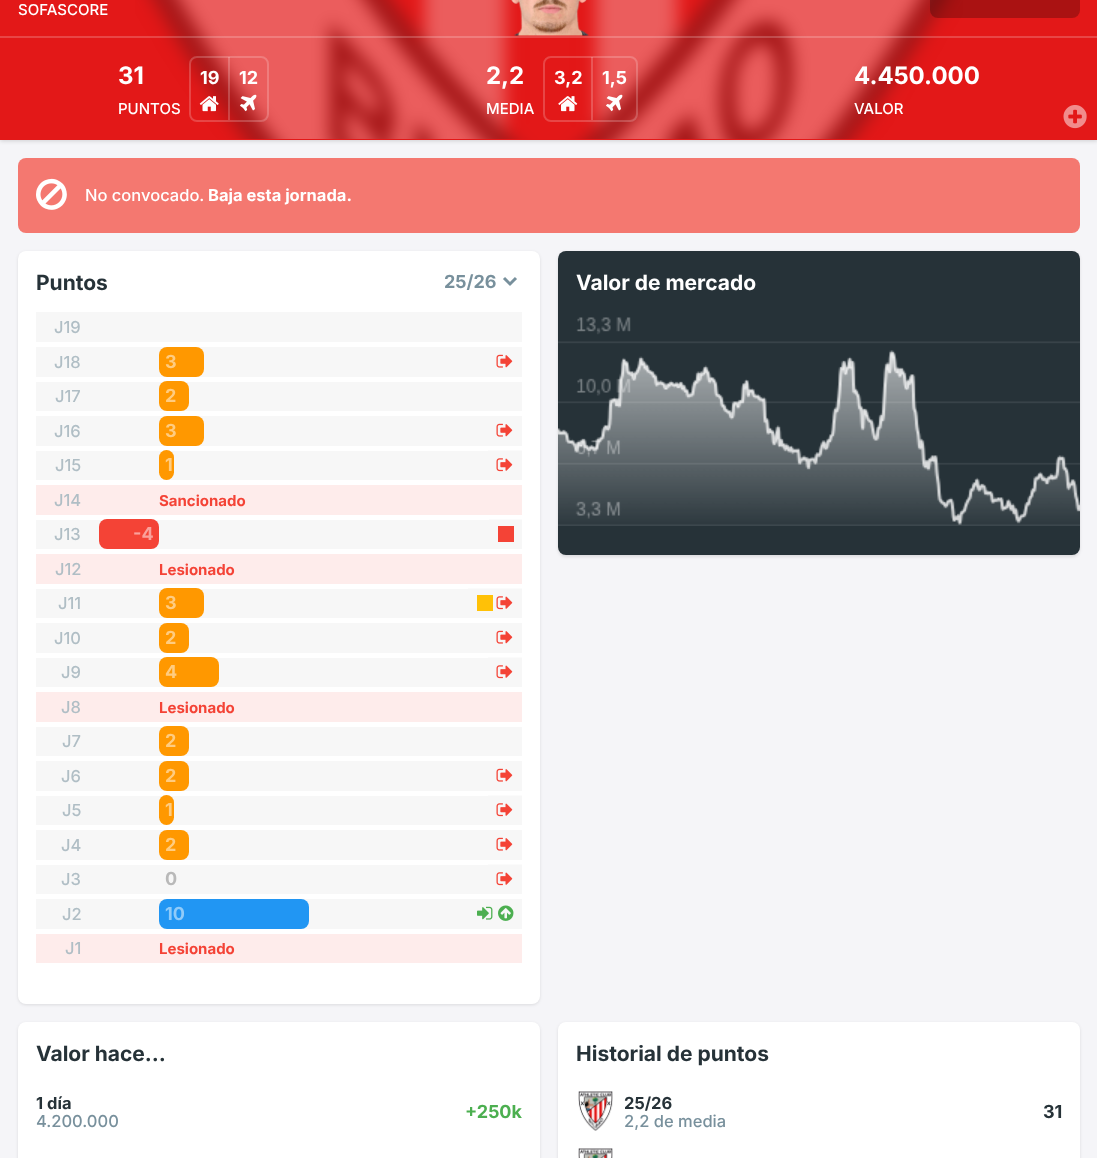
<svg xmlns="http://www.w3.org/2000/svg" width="1097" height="1158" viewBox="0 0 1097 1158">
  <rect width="100%" height="100%" fill="rgb(245,245,248)"/>
  <rect x="0" y="-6" width="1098" height="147" fill="rgba(0,0,0,0.15)" filter="blur(2px)"/>
  <rect x="0" y="0" width="1097" height="140" fill="rgb(227,24,24)"/>
  <image x="135" y="0" width="828" height="139" href="pic1.png"/>
  <rect x="135" y="0" width="828" height="139" fill="rgba(227,24,24,0.7)"/>
  <rect x="0" y="36" width="1097" height="2" fill="rgba(255,255,255,0.2)"/>
  <text x="18" y="15" font-family="Inter" font-size="15" font-weight="500" fill="rgb(255,255,255)">SOFASCORE</text>
  <image x="511" y="0" width="78" height="36" href="pic2.png"/>
  <rect x="930" y="-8" width="150" height="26" rx="8" fill="rgba(0,0,0,0.25)"/>
  <text x="118" y="84" font-family="Inter" font-size="24" font-weight="bold" fill="rgb(255,255,255)">31</text>
  <text x="118" y="114" font-family="Inter" font-size="15" font-weight="500" fill="rgb(255,255,255)">PUNTOS</text>
  <rect x="190" y="57" width="78" height="64" rx="7" fill="none" stroke="rgba(255,255,255,0.2)" stroke-width="2"/>
  <text x="200" y="84" font-family="Inter" font-size="18" font-weight="bold" fill="rgb(255,255,255)">19</text>
  <image x="199" y="96" width="20" height="16" href="pic3.png"/>
  <rect x="228" y="57" width="2" height="63" fill="rgba(255,255,255,0.2)"/>
  <text x="239" y="84" font-family="Inter" font-size="18" font-weight="bold" fill="rgb(255,255,255)">12</text>
  <image x="240" y="94" width="17" height="18" href="pic4.png"/>
  <text x="486" y="84" font-family="Inter" font-size="24" font-weight="bold" fill="rgb(255,255,255)">2,2</text>
  <text x="486" y="114" font-family="Inter" font-size="15" font-weight="500" fill="rgb(255,255,255)">MEDIA</text>
  <rect x="544" y="57" width="93" height="64" rx="7" fill="none" stroke="rgba(255,255,255,0.2)" stroke-width="2"/>
  <text x="554" y="84" font-family="Inter" font-size="18" font-weight="bold" fill="rgb(255,255,255)">3,2</text>
  <image x="558" y="96" width="20" height="16" href="pic5.png"/>
  <rect x="591" y="57" width="2" height="63" fill="rgba(255,255,255,0.2)"/>
  <text x="602" y="84" font-family="Inter" font-size="18" font-weight="bold" fill="rgb(255,255,255)">1,5</text>
  <image x="606" y="94" width="17" height="18" href="pic6.png"/>
  <text x="854" y="84" font-family="Inter" font-size="24" font-weight="bold" fill="rgb(255,255,255)">4.450.000</text>
  <text x="854" y="114" font-family="Inter" font-size="15" font-weight="500" fill="rgb(255,255,255)">VALOR</text>
  <image x="1063" y="105" width="24" height="24" href="pic7.png"/>
  <rect x="18" y="158" width="1062" height="75" rx="8" fill="rgb(244,120,112)"/>
  <image x="36" y="178" width="31" height="32" href="pic8.png"/>
  <text x="85" y="201" font-family="Inter" font-size="16.5" font-weight="500" fill="rgb(255,255,255)">No convocado.</text>
  <text x="208" y="201" font-family="Inter" font-size="16.5" font-weight="bold" fill="rgb(255,255,255)">Baja esta jornada.</text>
  <rect x="18" y="252" width="522" height="753" rx="8" fill="rgba(0,0,0,0.1)" filter="blur(1.5px)"/>
  <rect x="18" y="251" width="522" height="753" rx="8" fill="rgb(255,255,255)"/>
  <text x="36" y="290" font-family="Inter" font-size="21" font-weight="bold" fill="rgb(38,50,56)">Puntos</text>
  <path d="M504 278L510 284L516 278" fill="none" stroke="rgb(120,144,156)" stroke-width="3"/>
  <text x="444" y="288" font-family="Inter" font-size="18" font-weight="bold" fill="rgb(120,144,156)">25/26</text>
  <rect x="36" y="312" width="486" height="30" fill="rgb(247,247,247)"/>
  <text x="54" y="333" font-family="Inter" font-size="16.5" font-weight="500" fill="rgb(176,190,197)">J19</text>
  <rect x="36" y="347" width="486" height="30" fill="rgb(247,247,247)"/>
  <text x="54" y="368" font-family="Inter" font-size="16.5" font-weight="500" fill="rgb(176,190,197)">J18</text>
  <rect x="159" y="347" width="45" height="30" rx="8" fill="rgb(255,152,0)"/>
  <text x="165" y="368" font-family="Inter" font-size="18" font-weight="bold" fill="rgb(255,204,128)">3</text>
  <image x="496" y="354" width="17" height="14" href="pic9.png"/>
  <rect x="36" y="382" width="486" height="29" fill="rgb(247,247,247)"/>
  <text x="55" y="402" font-family="Inter" font-size="16.5" font-weight="500" fill="rgb(176,190,197)">J17</text>
  <rect x="159" y="381" width="30" height="30" rx="8" fill="rgb(255,152,0)"/>
  <text x="165" y="402" font-family="Inter" font-size="18" font-weight="bold" fill="rgb(255,204,128)">2</text>
  <rect x="36" y="416" width="486" height="30" fill="rgb(247,247,247)"/>
  <rect x="488" y="450" width="34" height="1" fill="rgb(251,251,251)"/>
  <text x="54" y="437" font-family="Inter" font-size="16.5" font-weight="500" fill="rgb(176,190,197)">J16</text>
  <rect x="159" y="416" width="45" height="30" rx="8" fill="rgb(255,152,0)"/>
  <text x="165" y="437" font-family="Inter" font-size="18" font-weight="bold" fill="rgb(255,204,128)">3</text>
  <image x="496" y="423" width="17" height="14" href="pic9.png"/>
  <rect x="36" y="451" width="486" height="29" fill="rgb(247,247,247)"/>
  <text x="55" y="471" font-family="Inter" font-size="16.5" font-weight="500" fill="rgb(176,190,197)">J15</text>
  <rect x="159" y="450" width="15" height="30" rx="7.5" fill="rgb(255,152,0)"/>
  <text x="165" y="471" font-family="Inter" font-size="18" font-weight="bold" fill="rgb(255,204,128)">1</text>
  <image x="496" y="458" width="17" height="14" href="pic10.png"/>
  <rect x="36" y="485" width="486" height="30" fill="rgb(254,236,235)"/>
  <rect x="489" y="519" width="33" height="1" fill="rgb(251,251,251)"/>
  <text x="54" y="506" font-family="Inter" font-size="16.5" font-weight="500" fill="rgb(176,190,197)">J14</text>
  <text x="159" y="506" font-family="Inter" font-size="15" font-weight="bold" fill="rgb(244,67,54)">Sancionado</text>
  <rect x="36" y="520" width="486" height="29" fill="rgb(247,247,247)"/>
  <text x="54" y="540" font-family="Inter" font-size="16.5" font-weight="500" fill="rgb(176,190,197)">J13</text>
  <rect x="99" y="519" width="60" height="30" rx="8" fill="rgb(244,67,54)"/>
  <text x="133" y="540" font-family="Inter" font-size="18" font-weight="bold" fill="rgb(250,161,155)">-4</text>
  <rect x="498" y="526" width="16" height="16" fill="rgb(244,67,54)"/>
  <rect x="36" y="554" width="486" height="30" fill="rgb(254,236,235)"/>
  <rect x="468" y="588" width="54" height="1" fill="rgb(251,251,251)"/>
  <text x="55" y="575" font-family="Inter" font-size="16.5" font-weight="500" fill="rgb(176,190,197)">J12</text>
  <text x="159" y="575" font-family="Inter" font-size="15" font-weight="bold" fill="rgb(244,67,54)">Lesionado</text>
  <rect x="36" y="589" width="486" height="29" fill="rgb(247,247,247)"/>
  <text x="58" y="609" font-family="Inter" font-size="16.5" font-weight="500" fill="rgb(176,190,197)">J11</text>
  <rect x="159" y="588" width="45" height="30" rx="8" fill="rgb(255,152,0)"/>
  <text x="165" y="609" font-family="Inter" font-size="18" font-weight="bold" fill="rgb(255,204,128)">3</text>
  <rect x="477" y="595" width="16" height="16" fill="rgb(255,193,7)"/>
  <image x="496" y="596" width="17" height="14" href="pic10.png"/>
  <rect x="36" y="623" width="486" height="30" fill="rgb(247,247,247)"/>
  <rect x="488" y="657" width="34" height="1" fill="rgb(251,251,251)"/>
  <text x="54" y="644" font-family="Inter" font-size="16.5" font-weight="500" fill="rgb(176,190,197)">J10</text>
  <rect x="159" y="623" width="30" height="30" rx="8" fill="rgb(255,152,0)"/>
  <text x="165" y="644" font-family="Inter" font-size="18" font-weight="bold" fill="rgb(255,204,128)">2</text>
  <image x="496" y="630" width="17" height="14" href="pic9.png"/>
  <rect x="36" y="658" width="486" height="29" fill="rgb(247,247,247)"/>
  <text x="61" y="678" font-family="Inter" font-size="16.5" font-weight="500" fill="rgb(176,190,197)">J9</text>
  <rect x="159" y="657" width="60" height="30" rx="8" fill="rgb(255,152,0)"/>
  <text x="165" y="678" font-family="Inter" font-size="18" font-weight="bold" fill="rgb(255,204,128)">4</text>
  <image x="496" y="665" width="17" height="14" href="pic10.png"/>
  <rect x="36" y="692" width="486" height="30" fill="rgb(254,236,235)"/>
  <text x="61" y="713" font-family="Inter" font-size="16.5" font-weight="500" fill="rgb(176,190,197)">J8</text>
  <text x="159" y="713" font-family="Inter" font-size="15" font-weight="bold" fill="rgb(244,67,54)">Lesionado</text>
  <rect x="36" y="727" width="486" height="29" fill="rgb(247,247,247)"/>
  <text x="62" y="747" font-family="Inter" font-size="16.5" font-weight="500" fill="rgb(176,190,197)">J7</text>
  <rect x="159" y="726" width="30" height="30" rx="8" fill="rgb(255,152,0)"/>
  <text x="165" y="747" font-family="Inter" font-size="18" font-weight="bold" fill="rgb(255,204,128)">2</text>
  <rect x="36" y="761" width="486" height="30" fill="rgb(247,247,247)"/>
  <rect x="488" y="795" width="34" height="1" fill="rgb(251,251,251)"/>
  <text x="61" y="782" font-family="Inter" font-size="16.5" font-weight="500" fill="rgb(176,190,197)">J6</text>
  <rect x="159" y="761" width="30" height="30" rx="8" fill="rgb(255,152,0)"/>
  <text x="165" y="782" font-family="Inter" font-size="18" font-weight="bold" fill="rgb(255,204,128)">2</text>
  <image x="496" y="768" width="17" height="14" href="pic9.png"/>
  <rect x="36" y="796" width="486" height="29" fill="rgb(247,247,247)"/>
  <text x="62" y="816" font-family="Inter" font-size="16.5" font-weight="500" fill="rgb(176,190,197)">J5</text>
  <rect x="159" y="795" width="15" height="30" rx="7.5" fill="rgb(255,152,0)"/>
  <text x="165" y="816" font-family="Inter" font-size="18" font-weight="bold" fill="rgb(255,204,128)">1</text>
  <image x="496" y="803" width="17" height="14" href="pic10.png"/>
  <rect x="36" y="830" width="486" height="30" fill="rgb(247,247,247)"/>
  <rect x="488" y="864" width="34" height="1" fill="rgb(251,251,251)"/>
  <text x="61" y="851" font-family="Inter" font-size="16.5" font-weight="500" fill="rgb(176,190,197)">J4</text>
  <rect x="159" y="830" width="30" height="30" rx="8" fill="rgb(255,152,0)"/>
  <text x="165" y="851" font-family="Inter" font-size="18" font-weight="bold" fill="rgb(255,204,128)">2</text>
  <image x="496" y="837" width="17" height="14" href="pic9.png"/>
  <rect x="36" y="865" width="486" height="29" fill="rgb(247,247,247)"/>
  <text x="61" y="885" font-family="Inter" font-size="16.5" font-weight="500" fill="rgb(176,190,197)">J3</text>
  <text x="165" y="885" font-family="Inter" font-size="18" font-weight="bold" fill="rgb(185,185,185)">0</text>
  <image x="496" y="872" width="17" height="14" href="pic10.png"/>
  <rect x="36" y="899" width="486" height="30" fill="rgb(247,247,247)"/>
  <text x="62" y="920" font-family="Inter" font-size="16.5" font-weight="500" fill="rgb(176,190,197)">J2</text>
  <rect x="159" y="899" width="150" height="30" rx="8" fill="rgb(33,150,243)"/>
  <text x="165" y="920" font-family="Inter" font-size="18" font-weight="bold" fill="rgb(144,203,249)">10</text>
  <image x="477" y="906" width="16" height="14" href="pic11.png"/>
  <image x="498" y="905" width="16" height="16" href="pic12.png"/>
  <rect x="36" y="934" width="486" height="29" fill="rgb(254,236,235)"/>
  <text x="65" y="954" font-family="Inter" font-size="16.5" font-weight="500" fill="rgb(176,190,197)">J1</text>
  <text x="159" y="954" font-family="Inter" font-size="15" font-weight="bold" fill="rgb(244,67,54)">Lesionado</text>
  <rect x="558" y="252" width="522" height="305" rx="8" fill="rgba(0,0,0,0.1)" filter="blur(1.5px)"/>
  <rect x="558" y="251" width="522" height="304" rx="8" fill="rgb(38,50,56)"/>
  <text x="576" y="290" font-family="Inter" font-size="21" font-weight="bold" fill="rgb(255,255,255)">Valor de mercado</text>
  <image x="558" y="317" width="522" height="209" href="pic13.png"/>
  <rect x="18" y="1023" width="522" height="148" rx="8" fill="rgba(0,0,0,0.1)" filter="blur(1.5px)"/>
  <rect x="18" y="1022" width="522" height="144" rx="8" fill="rgb(255,255,255)"/>
  <text x="36" y="1061" font-family="Inter" font-size="21" font-weight="bold" fill="rgb(38,50,56)">Valor hace…</text>
  <text x="36" y="1109" font-family="Inter" font-size="16.5" font-weight="bold" fill="rgb(38,50,56)">1 día</text>
  <text x="36" y="1127" font-family="Inter" font-size="16.5" font-weight="500" fill="rgb(120,144,156)">4.200.000</text>
  <text x="465" y="1118" font-family="Inter" font-size="18" font-weight="bold" fill="rgb(76,175,80)">+250k</text>
  <rect x="558" y="1023" width="522" height="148" rx="8" fill="rgba(0,0,0,0.1)" filter="blur(1.5px)"/>
  <rect x="558" y="1022" width="522" height="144" rx="8" fill="rgb(255,255,255)"/>
  <text x="576" y="1061" font-family="Inter" font-size="21" font-weight="bold" fill="rgb(38,50,56)">Historial de puntos</text>
  <image x="578" y="1091" width="35" height="40" href="pic14.png"/>
  <text x="624" y="1109" font-family="Inter" font-size="16.5" font-weight="bold" fill="rgb(38,50,56)">25/26</text>
  <text x="624" y="1127" font-family="Inter" font-size="16.5" font-weight="500" fill="rgb(120,144,156)">2,2 de media</text>
  <text x="1043" y="1118" font-family="Inter" font-size="18" font-weight="bold" fill="rgb(38,50,56)">31</text>
  <image x="578" y="1148" width="35" height="10" href="pic15.png"/>
</svg>
